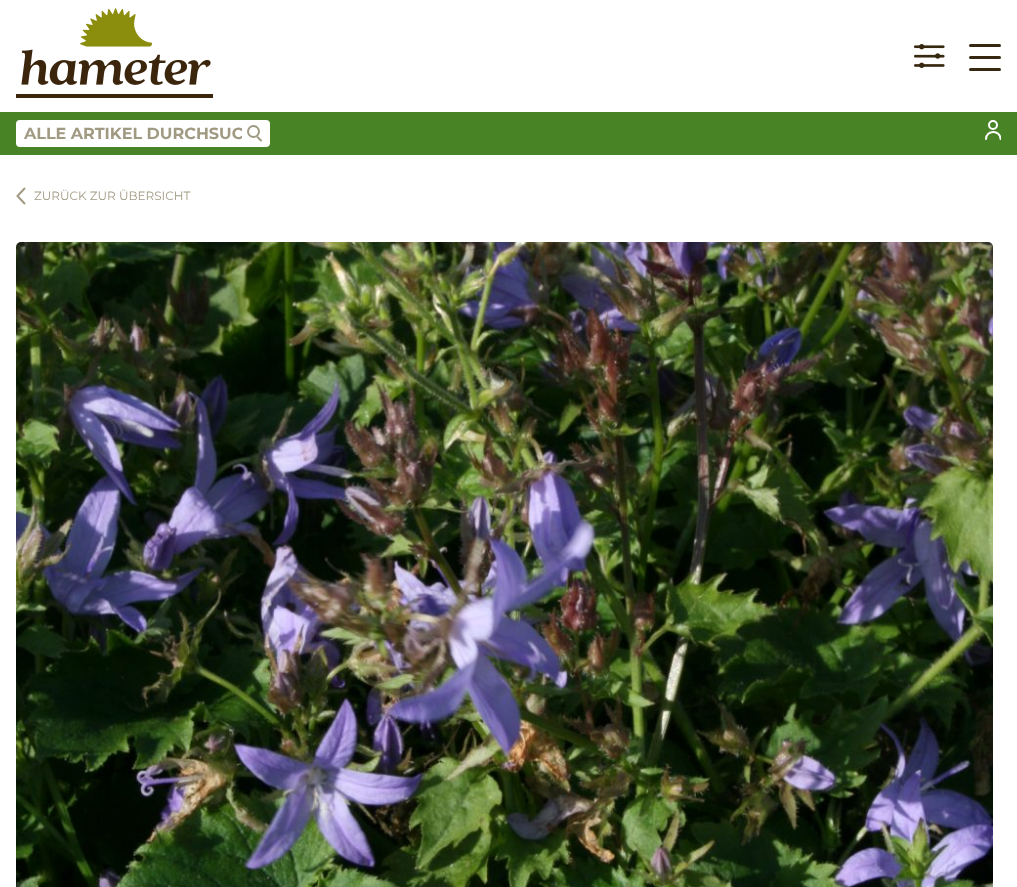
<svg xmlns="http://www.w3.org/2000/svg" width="1017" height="887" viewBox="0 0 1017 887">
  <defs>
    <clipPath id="clip1"><rect x="24" y="124" width="218" height="19"/></clipPath>
    <clipPath id="clip2"><rect x="985" y="120" width="16" height="20"/></clipPath>
  </defs>
  <rect width="100%" height="100%" fill="rgb(255,255,255)"/>
  <image x="16" y="8" width="197" height="90" href="pic1.png"/>
  <image x="914" y="44" width="31" height="24" href="pic2.png"/>
  <rect x="969" y="44" width="32" height="3" rx="1.5" fill="rgb(54,39,15)"/>
  <rect x="969" y="56" width="32" height="3" rx="1.5" fill="rgb(54,39,15)"/>
  <rect x="969" y="68" width="32" height="3" rx="1.5" fill="rgb(54,39,15)"/>
  <rect x="0" y="112" width="1017" height="43" fill="rgb(72,131,38)"/>
  <rect x="16" y="120" width="254" height="27" rx="4" fill="rgb(255,255,255)"/>
  <g clip-path="url(#clip1)">
    <text x="24" y="139" font-family="'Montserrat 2'" font-size="16" font-weight="100" fill="rgb(161,154,131)">ALLE ARTIKEL DURCHSUC</text>
  </g>
  <path d="M256.5 136L261 140.5" fill="none" stroke="rgb(159,154,132)" stroke-width="2" stroke-linecap="round"/>
  <circle cx="253.5" cy="131.5" r="6.5" fill="rgb(255,255,255)"/>
  <circle cx="253.5" cy="131.5" r="5.5" fill="none" stroke="rgb(159,154,132)" stroke-width="2"/>
  <circle cx="993" cy="125" r="4" fill="none" stroke="rgb(255,255,255)" stroke-width="2"/>
  <g clip-path="url(#clip2)">
    <path d="M986 139C986 129.5 1000.5 129.5 1000.5 139" fill="none" stroke="rgb(255,255,255)" stroke-width="2" stroke-linecap="round" stroke-linejoin="round"/>
  </g>
  <path d="M24.5 203.5L17.5 196L24.5 188.5" fill="none" stroke="rgb(161,154,131)" stroke-width="2" stroke-linecap="round"/>
  <text x="34" y="200" font-family="Montserrat" font-size="12" font-weight="100" fill="rgb(161,154,131)">ZURÜCK ZUR ÜBERSICHT</text>
  <image x="16" y="242" width="977" height="645" href="pic3.png"/>
</svg>
